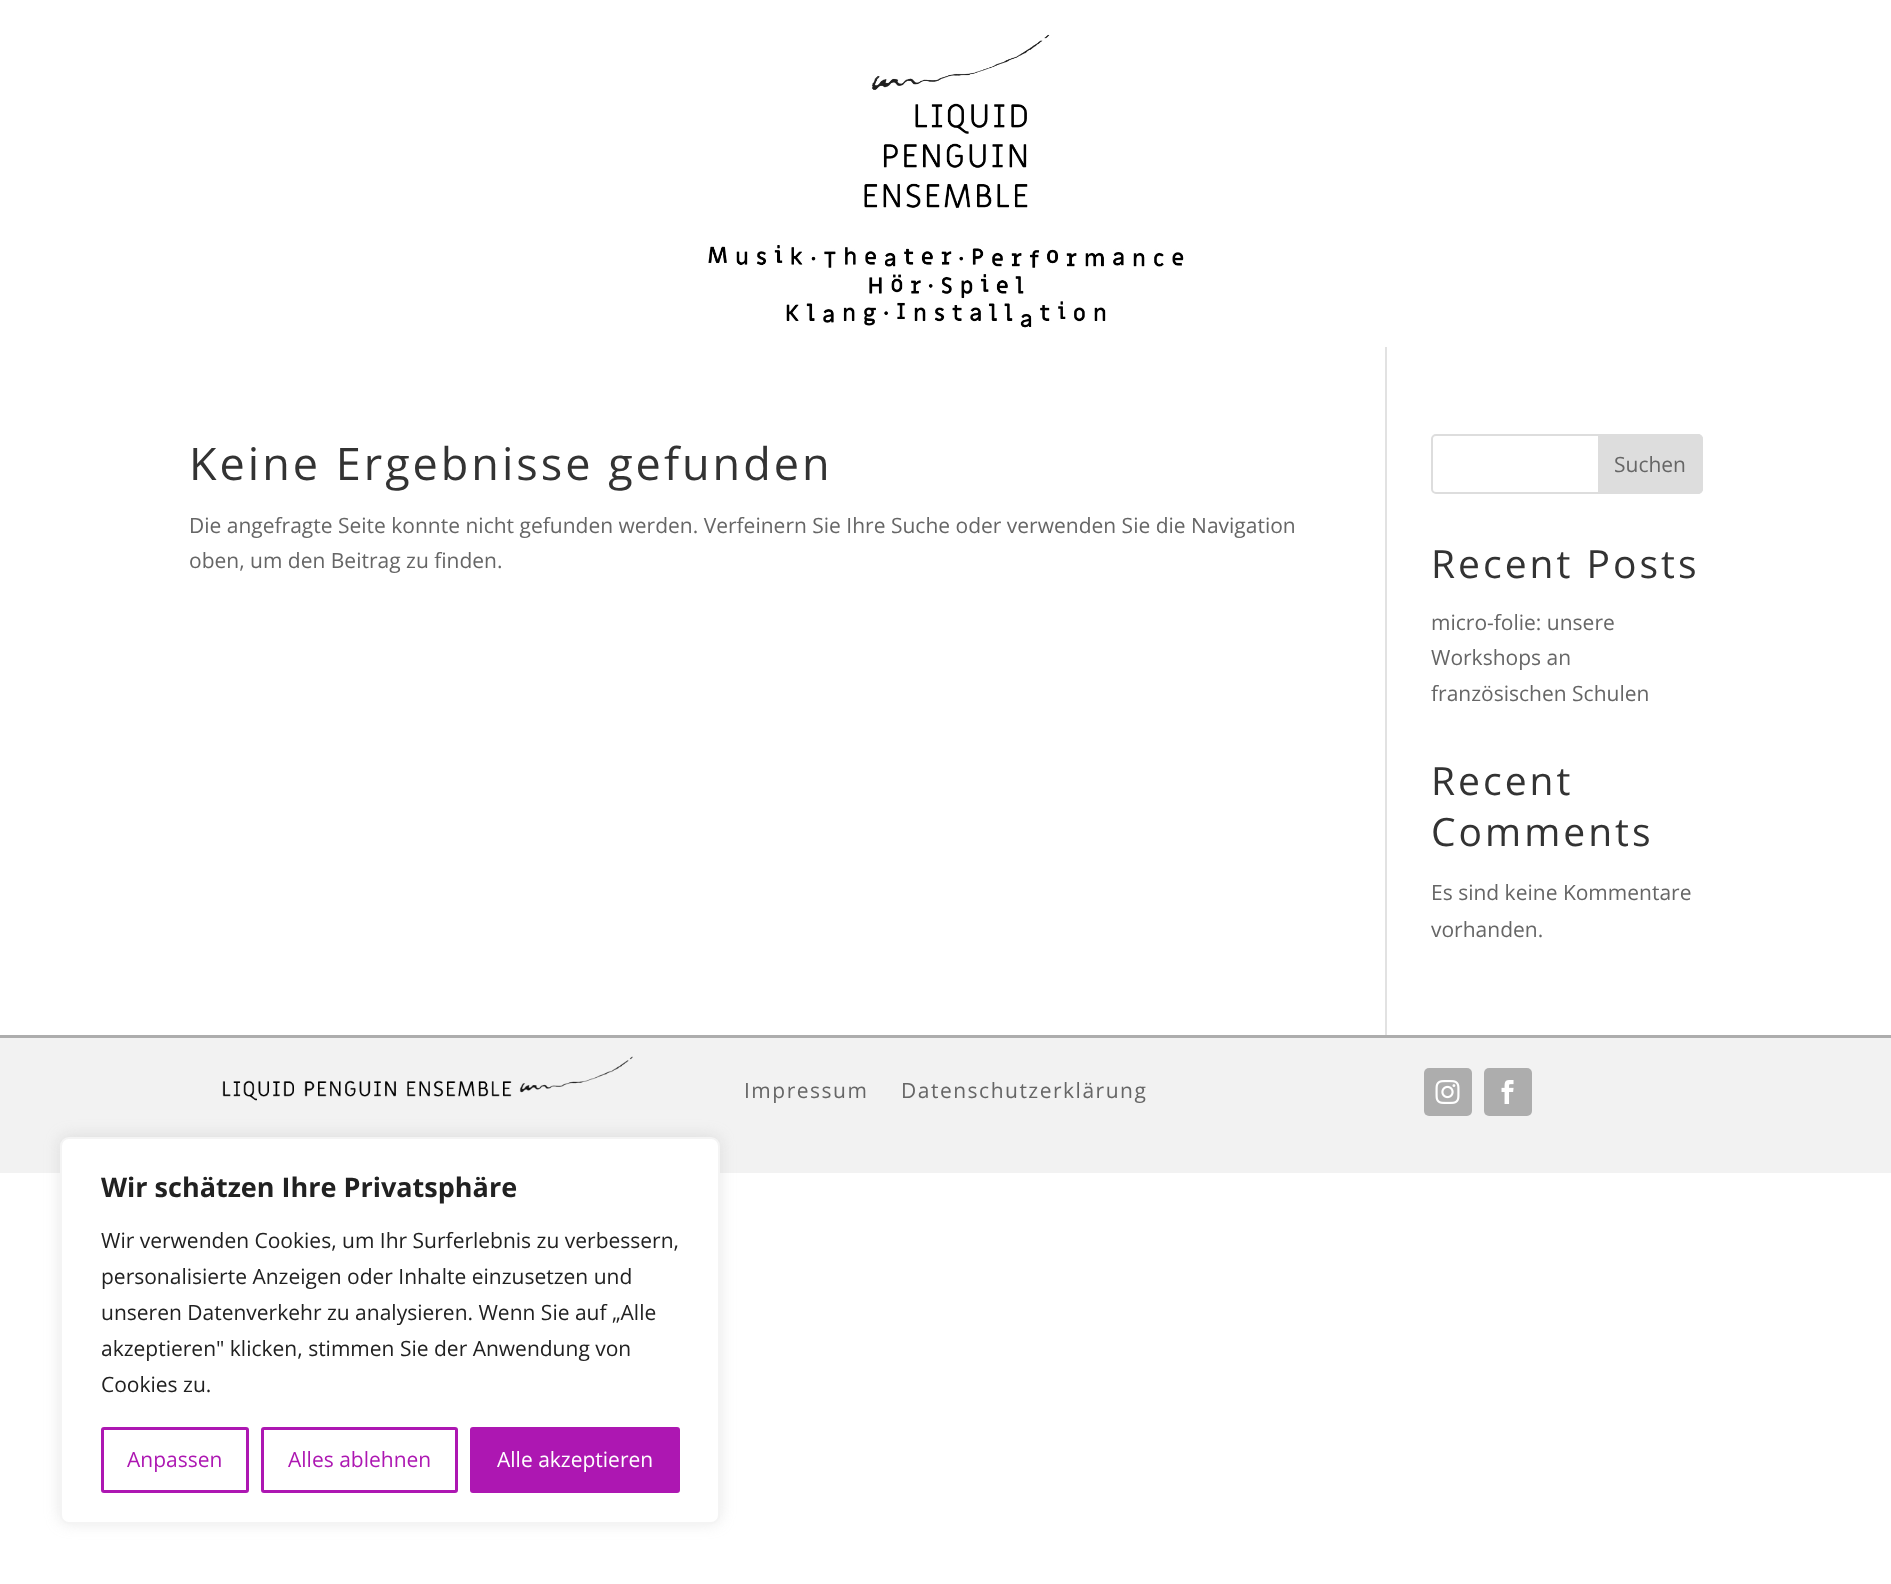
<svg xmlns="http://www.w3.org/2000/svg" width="1891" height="1584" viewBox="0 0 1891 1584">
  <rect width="100%" height="100%" fill="rgb(255,255,255)"/>
  <image x="708" y="34" width="476" height="294" href="pic1.png"/>
  <rect x="1385" y="347" width="2" height="688" fill="rgb(226,226,226)"/>
  <text x="189" y="480" font-family="Open Sans" font-size="45" letter-spacing="3" fill="rgb(51,51,51)">Keine Ergebnisse gefunden</text>
  <g font-family="Open Sans" font-size="21" fill="rgb(102,102,102)">
    <text>
      <tspan x="189" y="533">Die angefragte Seite konnte nicht gefunden werden. Verfeinern Sie Ihre Suche oder verwenden Sie die Navigation</tspan>
      <tspan x="189" y="568">oben, um den Beitrag zu finden.</tspan>
    </text>
  </g>
  <rect x="1432" y="435" width="270" height="58" rx="4" fill="none" stroke="rgb(221,221,221)" stroke-width="2"/>
  <path d="M1599 435H1698C1700 435 1702 437 1702 439V489C1702 491 1700 493 1698 493H1599Z" fill="rgb(221,221,221)" stroke="rgb(221,221,221)" stroke-width="2"/>
  <text x="1614" y="472" font-family="Open Sans" font-size="21" fill="rgb(102,102,102)">Suchen</text>
  <text x="1431" y="578" font-family="Open Sans" font-size="39" letter-spacing="3" fill="rgb(51,51,51)">Recent Posts</text>
  <g font-family="Open Sans" font-size="21" fill="rgb(102,102,102)">
    <text>
      <tspan x="1431" y="630">micro-folie: unsere</tspan>
      <tspan x="1431" y="665">Workshops an</tspan>
      <tspan x="1431" y="701">französischen Schulen</tspan>
    </text>
  </g>
  <g font-family="Open Sans" font-size="39" letter-spacing="3" fill="rgb(51,51,51)">
    <text>
      <tspan x="1431" y="795">Recent</tspan>
      <tspan x="1431" y="846">Comments</tspan>
    </text>
  </g>
  <g font-family="Open Sans" font-size="21" fill="rgb(102,102,102)">
    <text>
      <tspan x="1431" y="900">Es sind keine Kommentare</tspan>
      <tspan x="1431" y="937">vorhanden.</tspan>
    </text>
  </g>
  <rect x="0" y="1038" width="1891" height="135" fill="rgb(242,242,242)"/>
  <rect x="0" y="1035" width="1891" height="3" fill="rgb(173,173,173)"/>
  <image x="222" y="1056" width="411" height="45" href="pic2.png"/>
  <g font-family="Open Sans" font-size="21" letter-spacing="1.5" fill="rgb(102,102,102)">
    <text x="744" y="1098">Impressum</text>
    <text x="901" y="1098">Datenschutzerklärung</text>
  </g>
  <rect x="1424" y="1068" width="48" height="48" rx="5" fill="rgb(173,173,173)"/>
  <image x="1435" y="1080" width="25" height="24" href="pic3.png"/>
  <rect x="1484" y="1068" width="48" height="48" rx="5" fill="rgb(173,173,173)"/>
  <image x="1501" y="1080" width="13" height="24" href="pic4.png"/>
  <rect x="60" y="1136" width="660" height="387" rx="9" fill="rgba(172,171,171,0.3)" filter="blur(7.5px)"/>
  <rect x="61" y="1138" width="658" height="385" rx="8" fill="rgb(255,255,255)" stroke="rgb(244,244,244)" stroke-width="2"/>
  <text x="101" y="1197" font-family="Open Sans" font-size="27" font-weight="bold" fill="rgb(33,33,33)">Wir schätzen Ihre Privatsphäre</text>
  <g font-family="Open Sans" font-size="21" fill="rgb(33,33,33)">
    <text>
      <tspan x="101" y="1248">Wir verwenden Cookies, um Ihr Surferlebnis zu verbessern,</tspan>
      <tspan x="101" y="1284">personalisierte Anzeigen oder Inhalte einzusetzen und</tspan>
      <tspan x="101" y="1320">unseren Datenverkehr zu analysieren. Wenn Sie auf „Alle</tspan>
      <tspan x="101" y="1356">akzeptieren" klicken, stimmen Sie der Anwendung von</tspan>
      <tspan x="101" y="1392">Cookies zu.</tspan>
    </text>
  </g>
  <rect x="102.5" y="1428.5" width="145" height="63" rx="1.5" fill="none" stroke="rgb(173,23,178)" stroke-width="3"/>
  <text x="127" y="1467" font-family="Open Sans" font-size="21" fill="rgb(173,23,178)">Anpassen</text>
  <rect x="262.5" y="1428.5" width="194" height="63" rx="1.5" fill="none" stroke="rgb(173,23,178)" stroke-width="3"/>
  <text x="288" y="1467" font-family="Open Sans" font-size="21" fill="rgb(173,23,178)">Alles ablehnen</text>
  <rect x="471.5" y="1428.5" width="207" height="63" rx="1.5" fill="rgb(173,23,178)" stroke="rgb(173,23,178)" stroke-width="3"/>
  <text x="497" y="1467" font-family="Open Sans" font-size="21" fill="rgb(255,255,255)">Alle akzeptieren</text>
</svg>
